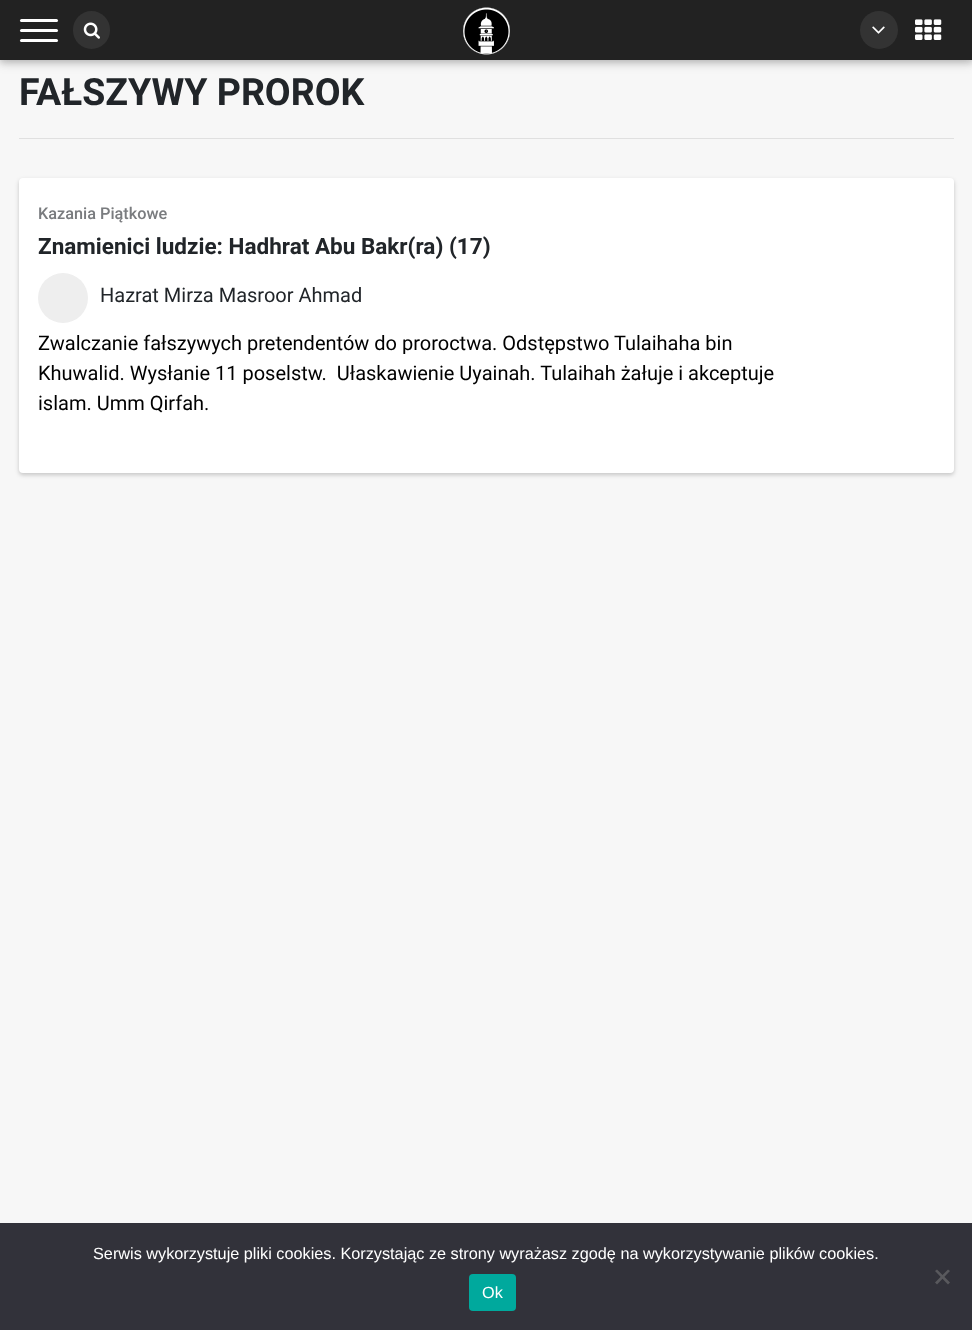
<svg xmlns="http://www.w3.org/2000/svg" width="972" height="1330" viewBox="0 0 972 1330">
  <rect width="100%" height="100%" fill="rgb(247,247,247)"/>
  <rect x="0" y="3" width="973" height="60" fill="rgba(0,0,0,0.12)" filter="blur(6px)"/>
  <rect x="0" y="3" width="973" height="60" fill="rgba(0,0,0,0.16)" filter="blur(3px)"/>
  <rect x="0" y="0" width="972" height="60" fill="rgb(34,34,34)"/>
  <rect x="20" y="19" width="38" height="3" rx="1.5" fill="rgb(255,255,255)"/>
  <rect x="20" y="29" width="38" height="3" rx="1.5" fill="rgb(255,255,255)"/>
  <rect x="20" y="39" width="38" height="3" rx="1.5" fill="rgb(255,255,255)"/>
  <rect x="73" y="11" width="37" height="38" rx="18.5" fill="rgb(51,51,51)"/>
  <image x="83" y="22" width="17" height="17" href="pic1.png"/>
  <image x="463" y="7" width="47" height="48" href="pic2.png"/>
  <circle cx="879" cy="30" r="19" fill="rgb(51,51,51)"/>
  <image x="872" y="26" width="13" height="8" href="pic3.png"/>
  <image x="915" y="19" width="27" height="21" href="pic4.png"/>
  <rect x="19" y="138" width="935" height="1" fill="rgb(224,224,224)"/>
  <text x="19" y="105" font-family="Roboto" font-size="37.5" font-weight="bold" fill="rgb(33,37,41)">FAŁSZYWY PROROK</text>
  <rect x="19" y="180" width="935" height="295" rx="4" fill="rgba(0,0,0,0.2)" filter="blur(2px)"/>
  <rect x="19" y="178" width="935" height="295" rx="4" fill="rgb(255,255,255)"/>
  <text x="38" y="219" font-family="Roboto" font-size="16.25" font-weight="500" fill="rgb(122,124,127)">Kazania Piątkowe</text>
  <text x="38" y="254" font-family="Roboto" font-size="22.5" font-weight="bold" fill="rgb(33,37,41)">Znamienici ludzie: Hadhrat Abu Bakr(ra) (17)</text>
  <circle cx="63" cy="298" r="25" fill="rgb(238,238,238)"/>
  <text x="100" y="302" font-family="Roboto" font-size="20" fill="rgb(33,37,41)">Hazrat Mirza Masroor Ahmad</text>
  <g font-family="Roboto" font-size="20" fill="rgb(0,0,0)">
    <text xml:space="preserve"><tspan x="38" y="350">Zwalczanie fałszywych pretendentów do proroctwa. Odstępstwo Tulaihaha bin</tspan><tspan x="38" y="380">Khuwalid. Wysłanie 11 poselstw.  Ułaskawienie Uyainah. Tulaihah żałuje i akceptuje</tspan><tspan x="38" y="410">islam. Umm Qirfah.</tspan></text>
  </g>
  <rect x="0" y="1223" width="972" height="107" fill="rgb(50,50,58)"/>
  <text x="93" y="1259" font-family="Liberation Sans" font-size="16.25" fill="rgb(255,255,255)">Serwis wykorzystuje pliki cookies. Korzystając ze strony wyrażasz zgodę na wykorzystywanie plików cookies.</text>
  <path d="M948 1269.5L950 1271L937 1284.5L935 1282.5Z" fill="rgb(89,89,93)"/>
  <path d="M935 1271L937 1269.5L950 1282.5L948 1284.5Z" fill="rgb(89,89,93)"/>
  <rect x="469" y="1274" width="47" height="37" rx="4" fill="rgb(0,169,157)"/>
  <text x="482" y="1298" font-family="Liberation Sans" font-size="16.25" fill="rgb(255,255,255)">Ok</text>
</svg>
